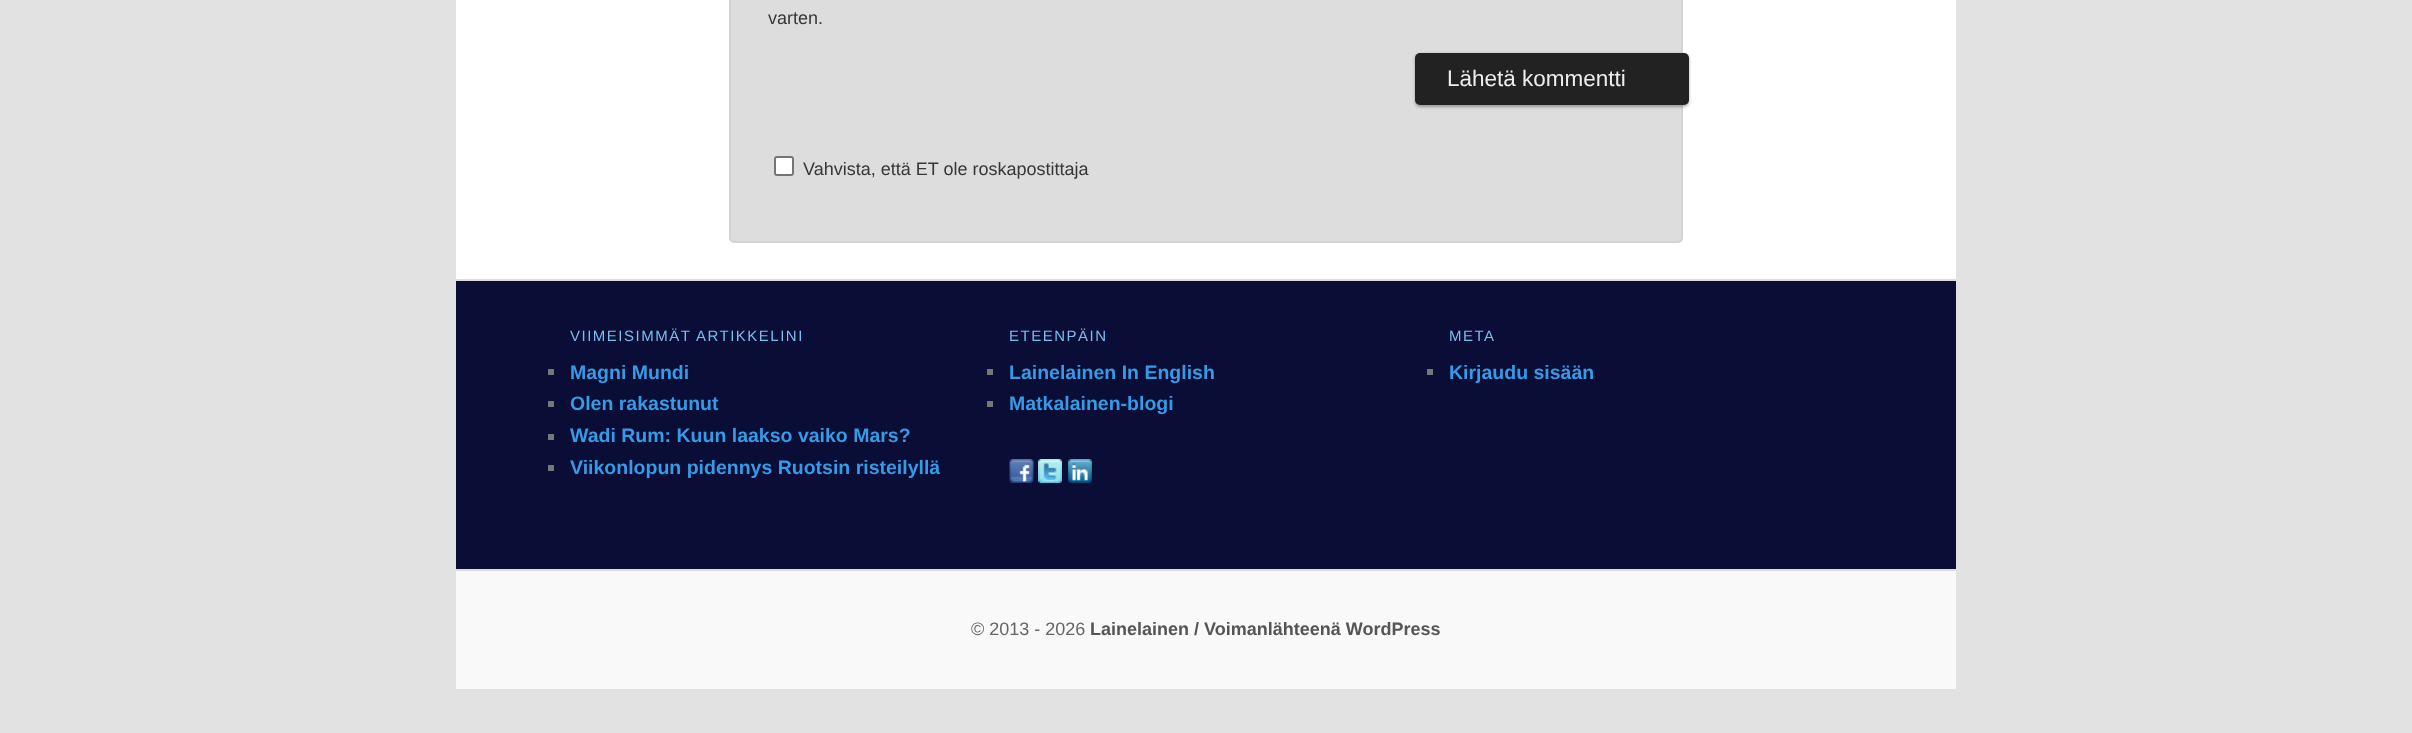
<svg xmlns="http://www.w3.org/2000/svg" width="2412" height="733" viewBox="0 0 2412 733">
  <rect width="100%" height="100%" fill="rgb(226,226,226)"/>
  <rect x="456" y="0" width="1500" height="279" fill="rgb(255,255,255)"/>
  <rect x="730" y="-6" width="952" height="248" rx="4" fill="rgb(221,221,221)" stroke="rgb(211,211,211)" stroke-width="2"/>
  <text x="768" y="24" font-family="Liberation Sans" font-size="18" fill="rgb(55,55,55)">varten.</text>
  <rect x="1415" y="54" width="274" height="53" rx="5" fill="rgba(0,0,0,0.3)" filter="blur(1.5px)"/>
  <rect x="1415" y="53" width="274" height="52" rx="5" fill="rgb(34,34,34)"/>
  <text x="1447" y="86" font-family="Liberation Sans" font-size="22.5" fill="rgb(238,238,238)">Lähetä kommentti</text>
  <rect x="775" y="157" width="18" height="18" rx="2" fill="rgb(255,255,255)" stroke="rgb(118,118,118)" stroke-width="2"/>
  <text x="803" y="175" font-family="Liberation Sans" font-size="18" fill="rgb(55,55,55)">Vahvista, että ET ole roskapostittaja</text>
  <rect x="456" y="281" width="1500" height="288" fill="rgb(10,13,53)"/>
  <rect x="456" y="279" width="1500" height="2" fill="rgb(221,221,221)"/>
  <text x="570" y="341" font-family="Liberation Sans" font-size="15" letter-spacing="1.5" fill="rgb(122,189,239)">VIIMEISIMMÄT ARTIKKELINI</text>
  <rect x="548" y="369" width="6" height="6" fill="rgb(119,119,119)"/>
  <text x="570" y="379" font-family="Liberation Sans" font-size="19.5" font-weight="bold" fill="rgb(54,155,231)">Magni Mundi</text>
  <rect x="548" y="401" width="6" height="6" fill="rgb(119,119,119)"/>
  <text x="570" y="410" font-family="Liberation Sans" font-size="19.5" font-weight="bold" fill="rgb(54,155,231)">Olen rakastunut</text>
  <rect x="548" y="434" width="6" height="6" fill="rgb(119,119,119)"/>
  <text x="570" y="442" font-family="Liberation Sans" font-size="19.5" font-weight="bold" fill="rgb(54,155,231)">Wadi Rum: Kuun laakso vaiko Mars?</text>
  <rect x="548" y="465" width="6" height="6" fill="rgb(119,119,119)"/>
  <text x="570" y="474" font-family="Liberation Sans" font-size="19.5" font-weight="bold" fill="rgb(54,155,231)">Viikonlopun pidennys Ruotsin risteilyllä</text>
  <text x="1009" y="341" font-family="Liberation Sans" font-size="15" letter-spacing="1.5" fill="rgb(122,189,239)">ETEENPÄIN</text>
  <rect x="987" y="369" width="6" height="6" fill="rgb(119,119,119)"/>
  <text x="1009" y="379" font-family="Liberation Sans" font-size="19.5" font-weight="bold" fill="rgb(54,155,231)">Lainelainen In English</text>
  <rect x="987" y="401" width="6" height="6" fill="rgb(119,119,119)"/>
  <text x="1009" y="410" font-family="Liberation Sans" font-size="19.5" font-weight="bold" fill="rgb(54,155,231)">Matkalainen-blogi</text>
  <image x="1009" y="459" width="25" height="24" href="pic1.png"/>
  <image x="1038" y="459" width="24" height="24" href="pic2.png"/>
  <image x="1068" y="459" width="24" height="24" href="pic3.png"/>
  <text x="1449" y="341" font-family="Liberation Sans" font-size="15" letter-spacing="1.5" fill="rgb(122,189,239)">META</text>
  <rect x="1427" y="369" width="6" height="6" fill="rgb(119,119,119)"/>
  <text x="1449" y="379" font-family="Liberation Sans" font-size="19.5" font-weight="bold" fill="rgb(54,155,231)">Kirjaudu sisään</text>
  <rect x="456" y="571" width="1500" height="118" fill="rgb(249,249,249)"/>
  <rect x="456" y="569" width="1500" height="2" fill="rgb(221,221,221)"/>
  <text x="971" y="635" font-family="Liberation Sans" font-size="18" fill="rgb(102,102,102)">© 2013 - 2026</text>
  <text x="1090" y="635" font-family="Liberation Sans" font-size="18" font-weight="bold" fill="rgb(85,85,85)">Lainelainen / Voimanlähteenä WordPress</text>
</svg>
